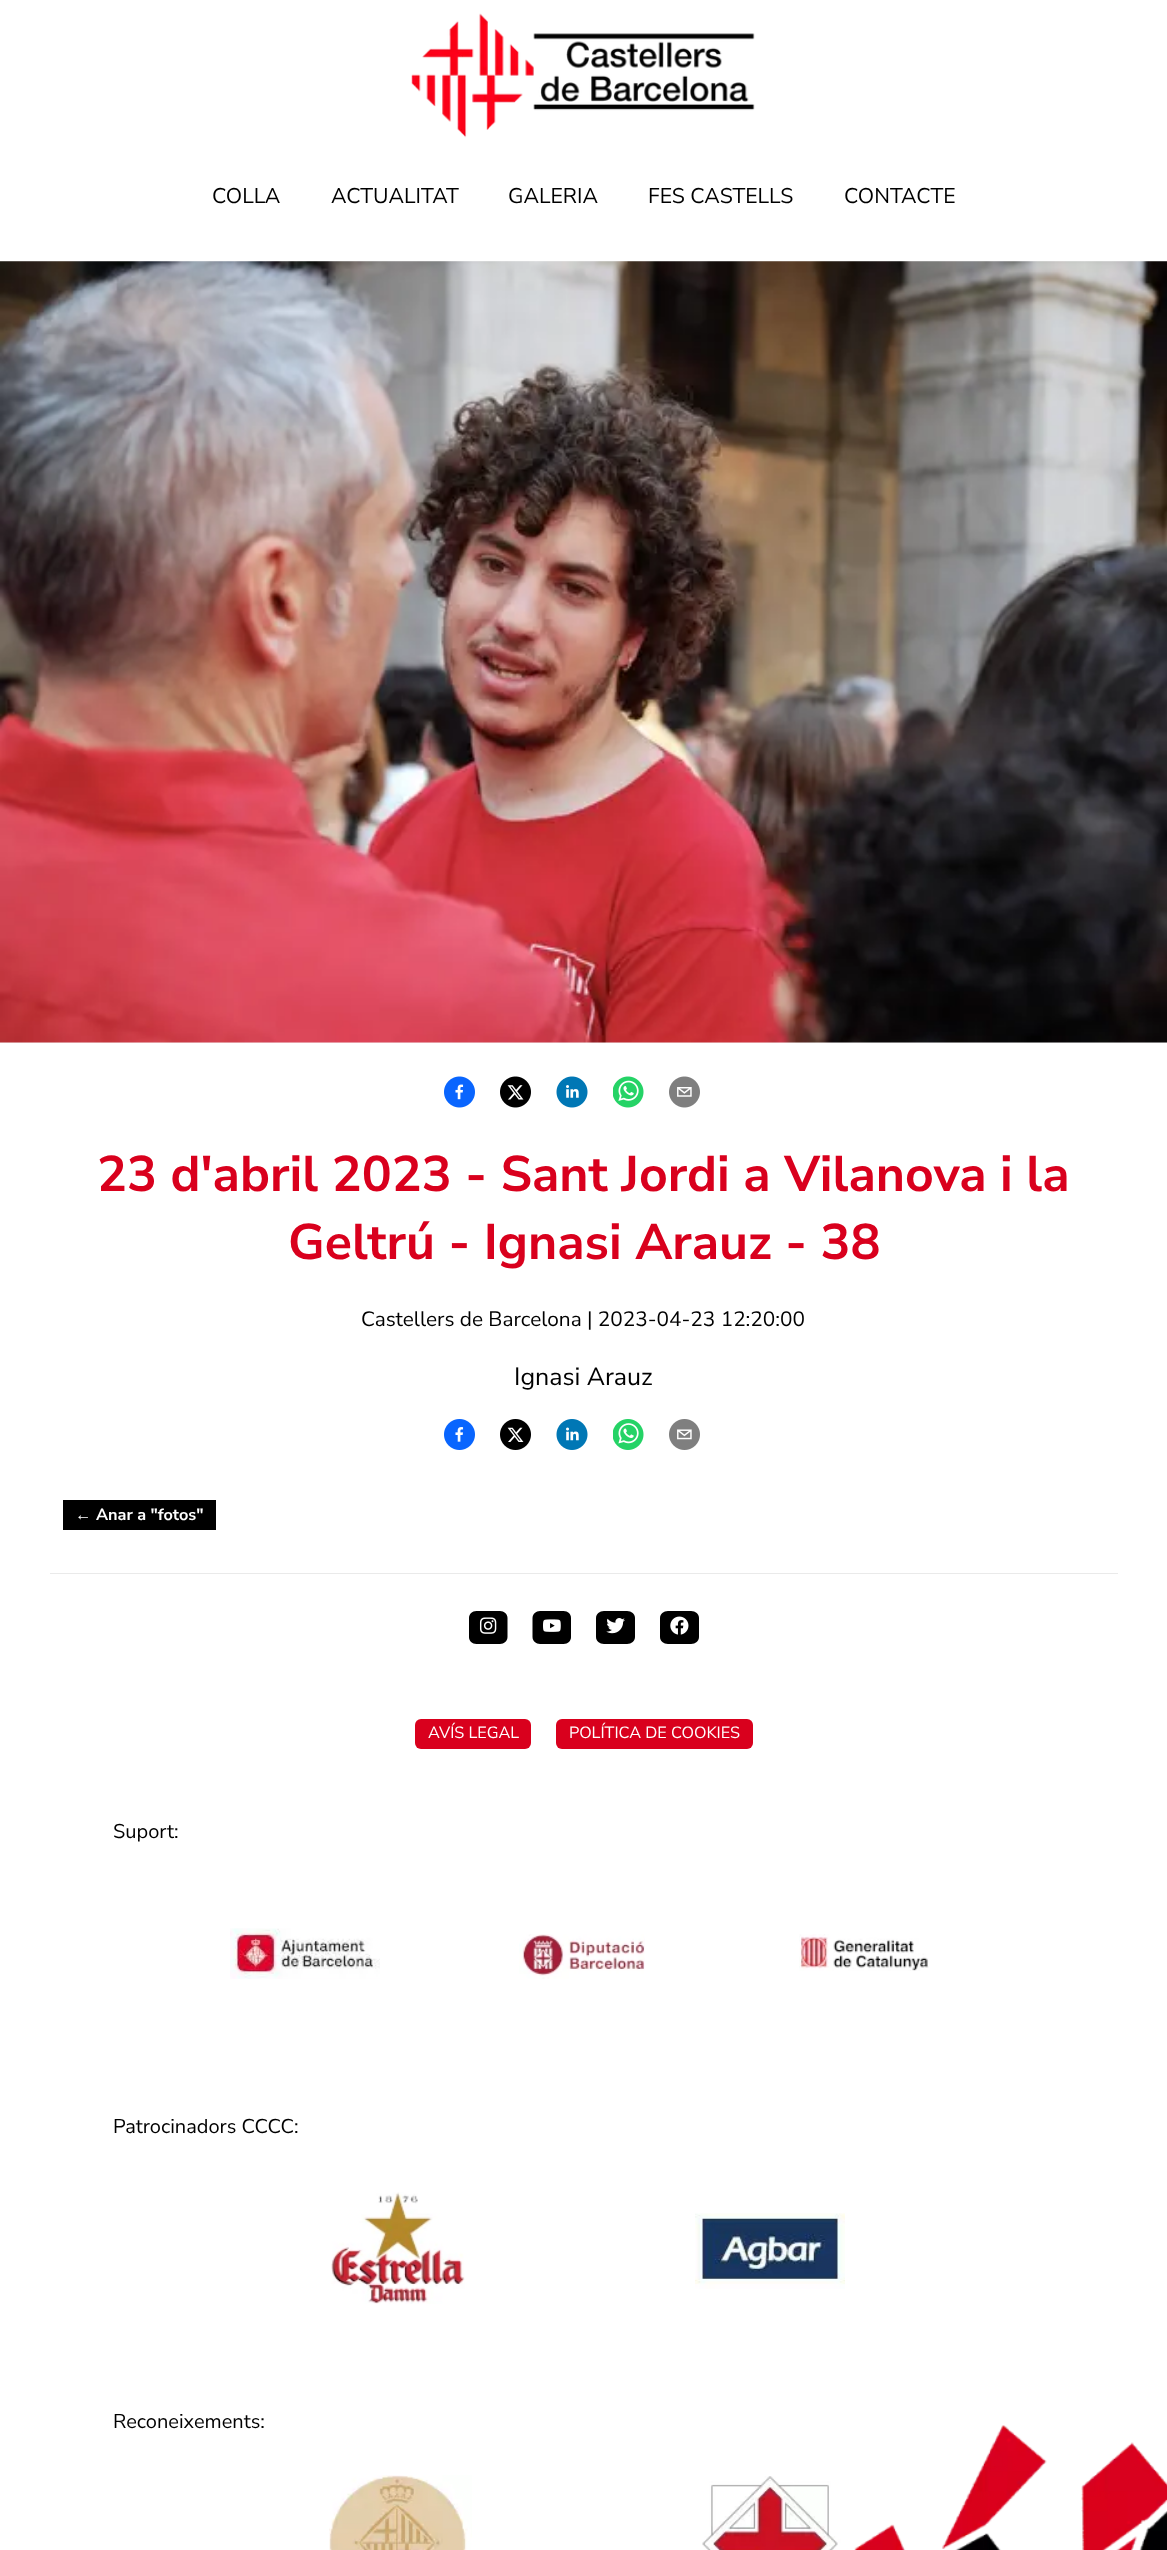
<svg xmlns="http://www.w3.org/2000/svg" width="1167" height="2550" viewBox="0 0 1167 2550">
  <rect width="100%" height="100%" fill="rgb(255,255,255)"/>
  <image x="854" y="2425" width="313" height="125" href="pic1.png"/>
  <image x="411" y="13" width="344" height="125" href="pic2.png"/>
  <g font-family="Nunito Sans" font-size="21.25" fill="rgb(0,0,0)">
    <text x="212" y="203">COLLA</text>
    <text x="331" y="203">ACTUALITAT</text>
    <text x="508" y="203">GALERIA</text>
    <text x="648" y="203">FES CASTELLS</text>
    <text x="844" y="203">CONTACTE</text>
  </g>
  <rect x="0" y="261" width="1167" height="782" fill="rgb(242,242,242)"/>
  <image x="0" y="261" width="1167" height="782" href="pic3.png"/>
  <image x="444" y="1076" width="31" height="32" href="pic4.png"/>
  <image x="500" y="1076" width="31" height="32" href="pic5.png"/>
  <image x="556" y="1076" width="32" height="32" href="pic6.png"/>
  <image x="613" y="1076" width="31" height="32" href="pic7.png"/>
  <image x="669" y="1076" width="31" height="32" href="pic8.png"/>
  <g font-family="Nunito Sans" font-size="50" font-weight="bold" fill="rgb(217,0,29)">
    <text x="97" y="1191">23 d'abril 2023 - Sant Jordi a Vilanova i la</text>
    <text x="288" y="1259">Geltrú - Ignasi Arauz - 38</text>
  </g>
  <text x="361" y="1326" font-family="Nunito Sans" font-size="20.8" fill="rgb(0,0,0)">Castellers de Barcelona | 2023-04-23 12:20:00</text>
  <text x="514" y="1385" font-family="Nunito Sans" font-size="25" fill="rgb(0,0,0)">Ignasi Arauz</text>
  <image x="444" y="1419" width="31" height="31" href="pic9.png"/>
  <image x="500" y="1419" width="31" height="31" href="pic10.png"/>
  <image x="556" y="1419" width="32" height="31" href="pic11.png"/>
  <image x="613" y="1419" width="31" height="31" href="pic12.png"/>
  <image x="669" y="1419" width="31" height="31" href="pic13.png"/>
  <rect x="63" y="1500" width="153" height="30" fill="rgb(0,0,0)"/>
  <text x="75" y="1520" font-family="Liberation Sans" font-size="16.25" font-weight="bold" fill="rgb(255,255,255)">←</text>
  <text x="96" y="1520" font-family="Nunito Sans" font-size="16.25" font-weight="bold" fill="rgb(255,255,255)">Anar a "fotos"</text>
  <rect x="50" y="1573" width="1068" height="1" fill="rgb(234,234,234)"/>
  <path d="M476.5 1611H500C504 1611 507.5 1614 507.5 1618V1637C507.5 1641 504 1644 500 1644H476.5C472 1644 469 1641 469 1637V1618C469 1614 472 1611 476.5 1611Z" fill="rgb(0,0,0)"/>
  <image x="479" y="1617" width="18" height="17" href="pic14.png"/>
  <path d="M540 1611H563.5C568 1611 571 1614 571 1618V1637C571 1641 568 1644 563.5 1644H540C536 1644 532.5 1641 532.5 1637V1618C532.5 1614 536 1611 540 1611Z" fill="rgb(0,0,0)"/>
  <image x="543" y="1619" width="18" height="13" href="pic15.png"/>
  <path d="M604 1611H627C631.5 1611 635 1614 635 1618V1637C635 1641 631.5 1644 627 1644H604C599.5 1644 596 1641 596 1637V1618C596 1614 599.5 1611 604 1611Z" fill="rgb(0,0,0)"/>
  <image x="606" y="1618" width="19" height="16" href="pic16.png"/>
  <path d="M668 1611H691C695.5 1611 699 1614 699 1618V1637C699 1641 695.5 1644 691 1644H668C663.5 1644 660 1641 660 1637V1618C660 1614 663.5 1611 668 1611Z" fill="rgb(0,0,0)"/>
  <image x="670" y="1616" width="19" height="19" href="pic17.png"/>
  <rect x="415" y="1719" width="116" height="30" rx="6" fill="rgb(217,0,29)"/>
  <text x="428" y="1738" font-family="Nunito Sans" font-size="16.25" fill="rgb(255,255,255)">AVÍS LEGAL</text>
  <rect x="556" y="1719" width="197" height="30" rx="6" fill="rgb(217,0,29)"/>
  <text x="569" y="1738" font-family="Nunito Sans" font-size="16.25" fill="rgb(255,255,255)">POLÍTICA DE COOKIES</text>
  <text x="113" y="1838" font-family="Nunito Sans" font-size="20" fill="rgb(0,0,0)">Suport:</text>
  <image x="230" y="1928" width="150" height="51" href="pic18.png"/>
  <image x="519" y="1934" width="126" height="45" href="pic19.png"/>
  <image x="799" y="1934" width="130" height="37" href="pic20.png"/>
  <text x="113" y="2133" font-family="Nunito Sans" font-size="20" fill="rgb(0,0,0)">Patrocinadors CCCC:</text>
  <image x="331" y="2192" width="134" height="112" href="pic21.png"/>
  <image x="695" y="2213" width="150" height="76" href="pic22.png"/>
  <text x="113" y="2428" font-family="Nunito Sans" font-size="20" fill="rgb(0,0,0)">Reconeixements:</text>
  <image x="329" y="2475" width="143" height="75" href="pic23.png"/>
  <image x="702" y="2476" width="143" height="74" href="pic24.png"/>
</svg>
